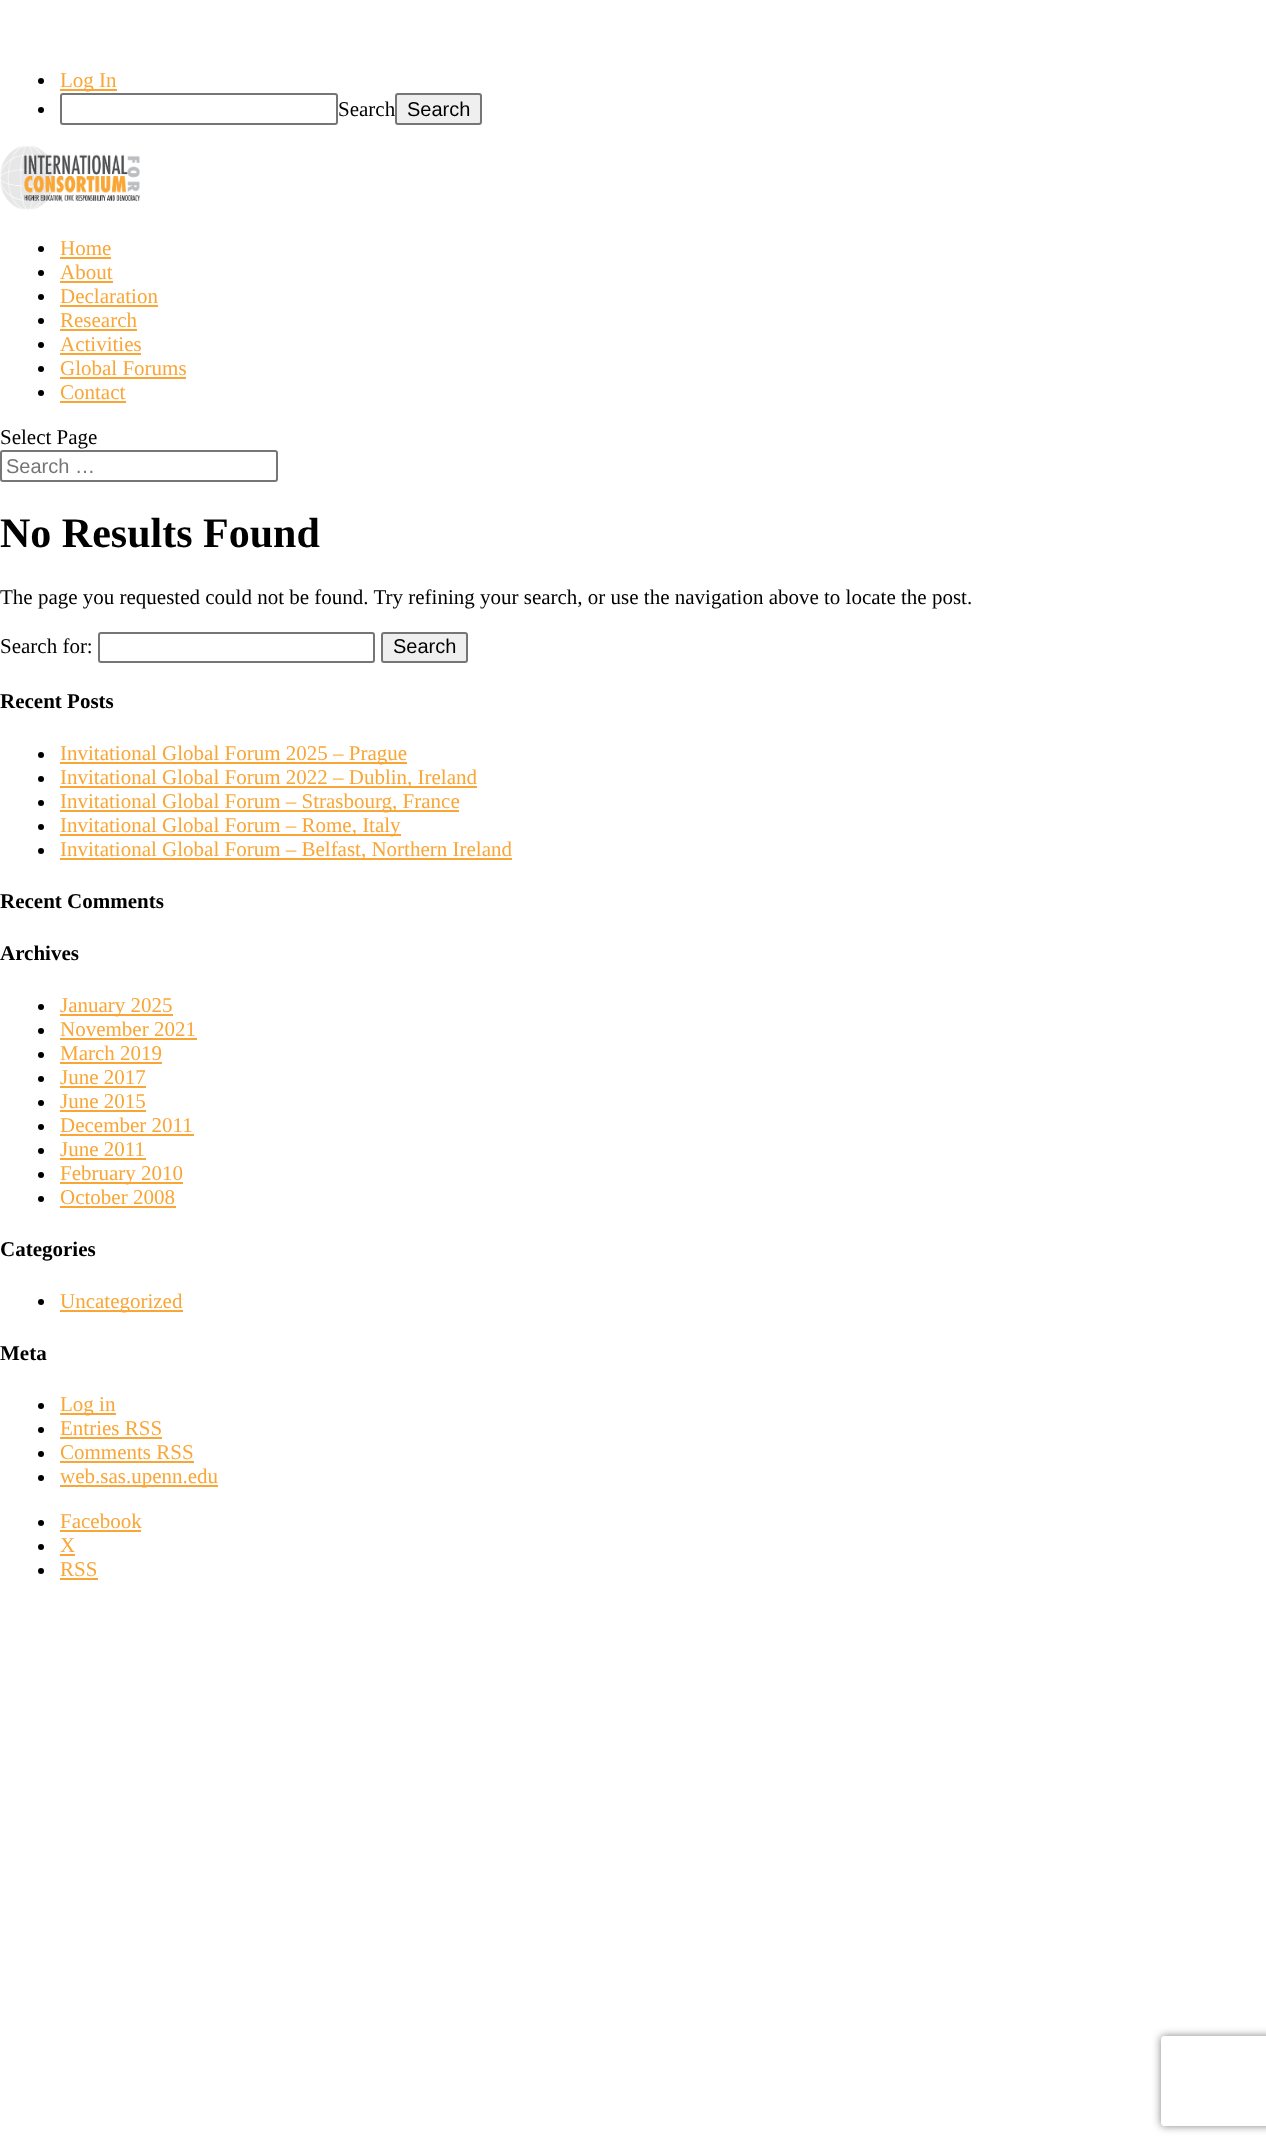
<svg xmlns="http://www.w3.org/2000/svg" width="1266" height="2146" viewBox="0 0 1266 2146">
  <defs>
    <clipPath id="clip1"><path d="M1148 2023H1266V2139H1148ZM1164 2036H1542C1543.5 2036 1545 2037.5 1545 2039V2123C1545 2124.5 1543.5 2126 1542 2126H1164C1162.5 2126 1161 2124.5 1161 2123V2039C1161 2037.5 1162.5 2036 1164 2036Z" clip-rule="evenodd"/></clipPath>
  </defs>
  <rect width="100%" height="100%" fill="rgb(255,255,255)"/>
  <circle cx="41" cy="81" r="3" fill="rgb(0,0,0)"/>
  <rect x="60" y="89" width="57" height="2" fill="rgb(249,166,55)"/>
  <text x="60" y="87" font-family="Liberation Serif" font-size="21" fill="rgb(249,166,55)">Log In</text>
  <circle cx="41" cy="110" r="3" fill="rgb(0,0,0)"/>
  <rect x="61" y="94" width="276" height="30" rx="2" fill="none" stroke="rgb(118,118,118)" stroke-width="2"/>
  <text x="338" y="116" font-family="Liberation Serif" font-size="21" fill="rgb(0,0,0)">Search</text>
  <rect x="396" y="94" width="85" height="30" rx="2" fill="rgb(239,239,239)" stroke="rgb(118,118,118)" stroke-width="2"/>
  <text x="407" y="116" font-family="Liberation Sans" font-size="20" fill="rgb(0,0,0)">Search</text>
  <image x="0" y="145" width="140" height="65" href="pic1.png"/>
  <circle cx="41" cy="249" r="3" fill="rgb(0,0,0)"/>
  <text x="60" y="255" font-family="Liberation Serif" font-size="21" fill="rgb(249,166,55)">Home</text>
  <rect x="60" y="257" width="51" height="2" fill="rgb(249,166,55)"/>
  <circle cx="41" cy="273" r="3" fill="rgb(0,0,0)"/>
  <text x="60" y="279" font-family="Liberation Serif" font-size="21" fill="rgb(249,166,55)">About</text>
  <rect x="60" y="281" width="53" height="2" fill="rgb(249,166,55)"/>
  <circle cx="41" cy="297" r="3" fill="rgb(0,0,0)"/>
  <text x="60" y="303" font-family="Liberation Serif" font-size="21" fill="rgb(249,166,55)">Declaration</text>
  <rect x="60" y="305" width="98" height="2" fill="rgb(249,166,55)"/>
  <circle cx="41" cy="321" r="3" fill="rgb(0,0,0)"/>
  <text x="60" y="327" font-family="Liberation Serif" font-size="21" fill="rgb(249,166,55)">Research</text>
  <rect x="60" y="329" width="77" height="2" fill="rgb(249,166,55)"/>
  <circle cx="41" cy="345" r="3" fill="rgb(0,0,0)"/>
  <text x="60" y="351" font-family="Liberation Serif" font-size="21" fill="rgb(249,166,55)">Activities</text>
  <rect x="60" y="353" width="81" height="2" fill="rgb(249,166,55)"/>
  <circle cx="41" cy="369" r="3" fill="rgb(0,0,0)"/>
  <text x="60" y="375" font-family="Liberation Serif" font-size="21" fill="rgb(249,166,55)">Global Forums</text>
  <rect x="60" y="377" width="126" height="2" fill="rgb(249,166,55)"/>
  <circle cx="41" cy="393" r="3" fill="rgb(0,0,0)"/>
  <text x="60" y="399" font-family="Liberation Serif" font-size="21" fill="rgb(249,166,55)">Contact</text>
  <rect x="60" y="401" width="66" height="2" fill="rgb(249,166,55)"/>
  <text x="0" y="444" font-family="Liberation Serif" font-size="21" fill="rgb(0,0,0)">Select Page</text>
  <rect x="1" y="451" width="276" height="30" rx="2" fill="none" stroke="rgb(118,118,118)" stroke-width="2"/>
  <text x="6" y="473" font-family="Liberation Sans" font-size="20" fill="rgb(117,117,117)">Search …</text>
  <text x="0" y="547" font-family="Liberation Serif" font-size="42" font-weight="bold" fill="rgb(0,0,0)">No Results Found</text>
  <g font-family="Liberation Serif" font-size="21" fill="rgb(0,0,0)">
    <text x="0" y="604">The page you requested could not be found. Try refining your search, or use the navigation above to locate the post.</text>
    <text x="0" y="653">Search for:</text>
  </g>
  <rect x="99" y="633" width="275" height="29" rx="2" fill="none" stroke="rgb(118,118,118)" stroke-width="2"/>
  <rect x="382" y="633" width="85" height="29" rx="2" fill="rgb(239,239,239)" stroke="rgb(118,118,118)" stroke-width="2"/>
  <text x="393" y="653" font-family="Liberation Sans" font-size="20" fill="rgb(0,0,0)">Search</text>
  <text x="0" y="708" font-family="Liberation Serif" font-size="21" font-weight="bold" fill="rgb(0,0,0)">Recent Posts</text>
  <circle cx="41" cy="755" r="3" fill="rgb(0,0,0)"/>
  <rect x="60" y="762" width="347" height="2" fill="rgb(249,166,55)"/>
  <text x="60" y="760" font-family="Liberation Serif" font-size="21" fill="rgb(249,166,55)">Invitational Global Forum 2025 – Prague</text>
  <circle cx="41" cy="779" r="3" fill="rgb(0,0,0)"/>
  <rect x="60" y="786" width="417" height="2" fill="rgb(249,166,55)"/>
  <text x="60" y="784" font-family="Liberation Serif" font-size="21" fill="rgb(249,166,55)">Invitational Global Forum 2022 – Dublin, Ireland</text>
  <circle cx="41" cy="803" r="3" fill="rgb(0,0,0)"/>
  <rect x="60" y="810" width="399" height="2" fill="rgb(249,166,55)"/>
  <text x="60" y="808" font-family="Liberation Serif" font-size="21" fill="rgb(249,166,55)">Invitational Global Forum – Strasbourg, France</text>
  <circle cx="41" cy="827" r="3" fill="rgb(0,0,0)"/>
  <rect x="60" y="834" width="341" height="2" fill="rgb(249,166,55)"/>
  <text x="60" y="832" font-family="Liberation Serif" font-size="21" fill="rgb(249,166,55)">Invitational Global Forum – Rome, Italy</text>
  <circle cx="41" cy="851" r="3" fill="rgb(0,0,0)"/>
  <rect x="60" y="858" width="452" height="2" fill="rgb(249,166,55)"/>
  <text x="60" y="856" font-family="Liberation Serif" font-size="21" fill="rgb(249,166,55)">Invitational Global Forum – Belfast, Northern Ireland</text>
  <g font-family="Liberation Serif" font-size="21" font-weight="bold" fill="rgb(0,0,0)">
    <text x="0" y="908">Recent Comments</text>
    <text x="0" y="960">Archives</text>
  </g>
  <circle cx="41" cy="1007" r="3" fill="rgb(0,0,0)"/>
  <rect x="60" y="1014" width="113" height="2" fill="rgb(249,166,55)"/>
  <text x="60" y="1012" font-family="Liberation Serif" font-size="21" fill="rgb(249,166,55)">January 2025</text>
  <circle cx="41" cy="1031" r="3" fill="rgb(0,0,0)"/>
  <text x="60" y="1036" font-family="Liberation Serif" font-size="21" fill="rgb(249,166,55)">November 2021</text>
  <rect x="60" y="1038" width="137" height="2" fill="rgb(249,166,55)"/>
  <circle cx="41" cy="1055" r="3" fill="rgb(0,0,0)"/>
  <text x="60" y="1060" font-family="Liberation Serif" font-size="21" fill="rgb(249,166,55)">March 2019</text>
  <rect x="60" y="1062" width="102" height="2" fill="rgb(249,166,55)"/>
  <circle cx="41" cy="1079" r="3" fill="rgb(0,0,0)"/>
  <text x="60" y="1084" font-family="Liberation Serif" font-size="21" fill="rgb(249,166,55)">June 2017</text>
  <rect x="60" y="1086" width="86" height="2" fill="rgb(249,166,55)"/>
  <circle cx="41" cy="1103" r="3" fill="rgb(0,0,0)"/>
  <text x="60" y="1108" font-family="Liberation Serif" font-size="21" fill="rgb(249,166,55)">June 2015</text>
  <rect x="60" y="1110" width="86" height="2" fill="rgb(249,166,55)"/>
  <circle cx="41" cy="1127" r="3" fill="rgb(0,0,0)"/>
  <text x="60" y="1132" font-family="Liberation Serif" font-size="21" fill="rgb(249,166,55)">December 2011</text>
  <rect x="60" y="1134" width="134" height="2" fill="rgb(249,166,55)"/>
  <circle cx="41" cy="1151" r="3" fill="rgb(0,0,0)"/>
  <text x="60" y="1156" font-family="Liberation Serif" font-size="21" fill="rgb(249,166,55)">June 2011</text>
  <rect x="60" y="1158" width="86" height="2" fill="rgb(249,166,55)"/>
  <circle cx="41" cy="1175" r="3" fill="rgb(0,0,0)"/>
  <rect x="60" y="1182" width="123" height="2" fill="rgb(249,166,55)"/>
  <text x="60" y="1180" font-family="Liberation Serif" font-size="21" fill="rgb(249,166,55)">February 2010</text>
  <circle cx="41" cy="1199" r="3" fill="rgb(0,0,0)"/>
  <text x="60" y="1204" font-family="Liberation Serif" font-size="21" fill="rgb(249,166,55)">October 2008</text>
  <rect x="60" y="1206" width="116" height="2" fill="rgb(249,166,55)"/>
  <text x="0" y="1256" font-family="Liberation Serif" font-size="21" font-weight="bold" fill="rgb(0,0,0)">Categories</text>
  <circle cx="41" cy="1302" r="3" fill="rgb(0,0,0)"/>
  <rect x="60" y="1310" width="123" height="2" fill="rgb(249,166,55)"/>
  <text x="60" y="1308" font-family="Liberation Serif" font-size="21" fill="rgb(249,166,55)">Uncategorized</text>
  <text x="0" y="1360" font-family="Liberation Serif" font-size="21" font-weight="bold" fill="rgb(0,0,0)">Meta</text>
  <circle cx="41" cy="1406" r="3" fill="rgb(0,0,0)"/>
  <rect x="60" y="1413" width="56" height="2" fill="rgb(249,166,55)"/>
  <text x="60" y="1411" font-family="Liberation Serif" font-size="21" fill="rgb(249,166,55)">Log in</text>
  <circle cx="41" cy="1430" r="3" fill="rgb(0,0,0)"/>
  <text x="60" y="1435" font-family="Liberation Serif" font-size="21" fill="rgb(249,166,55)">Entries RSS</text>
  <rect x="60" y="1437" width="65" height="2" fill="rgb(249,166,55)"/>
  <path d="M124.5 1438H162" fill="none" stroke="rgb(249,166,55)" stroke-width="1.5" stroke-dasharray="1.5 1.5"/>
  <rect x="125" y="1437" width="37" height="2" fill="rgb(249,166,55)"/>
  <circle cx="41" cy="1454" r="3" fill="rgb(0,0,0)"/>
  <text x="60" y="1459" font-family="Liberation Serif" font-size="21" fill="rgb(249,166,55)">Comments RSS</text>
  <rect x="60" y="1461" width="134" height="2" fill="rgb(249,166,55)"/>
  <circle cx="41" cy="1478" r="3" fill="rgb(0,0,0)"/>
  <rect x="60" y="1485" width="158" height="2" fill="rgb(249,166,55)"/>
  <text x="60" y="1483" font-family="Liberation Serif" font-size="21" fill="rgb(249,166,55)">web.sas.upenn.edu</text>
  <circle cx="41" cy="1523" r="3" fill="rgb(0,0,0)"/>
  <text x="60" y="1528" font-family="Liberation Serif" font-size="21" fill="rgb(249,166,55)">Facebook</text>
  <rect x="60" y="1530" width="81" height="2" fill="rgb(249,166,55)"/>
  <circle cx="41" cy="1547" r="3" fill="rgb(0,0,0)"/>
  <text x="60" y="1552" font-family="Liberation Serif" font-size="21" fill="rgb(249,166,55)">X</text>
  <rect x="60" y="1554" width="15" height="2" fill="rgb(249,166,55)"/>
  <circle cx="41" cy="1571" r="3" fill="rgb(0,0,0)"/>
  <text x="60" y="1576" font-family="Liberation Serif" font-size="21" fill="rgb(249,166,55)">RSS</text>
  <rect x="60" y="1578" width="38" height="2" fill="rgb(249,166,55)"/>
  <g clip-path="url(#clip1)">
    <rect x="1161" y="2036" width="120" height="90" rx="3" fill="rgb(128,128,128)" filter="blur(4px)"/>
  </g>
</svg>
